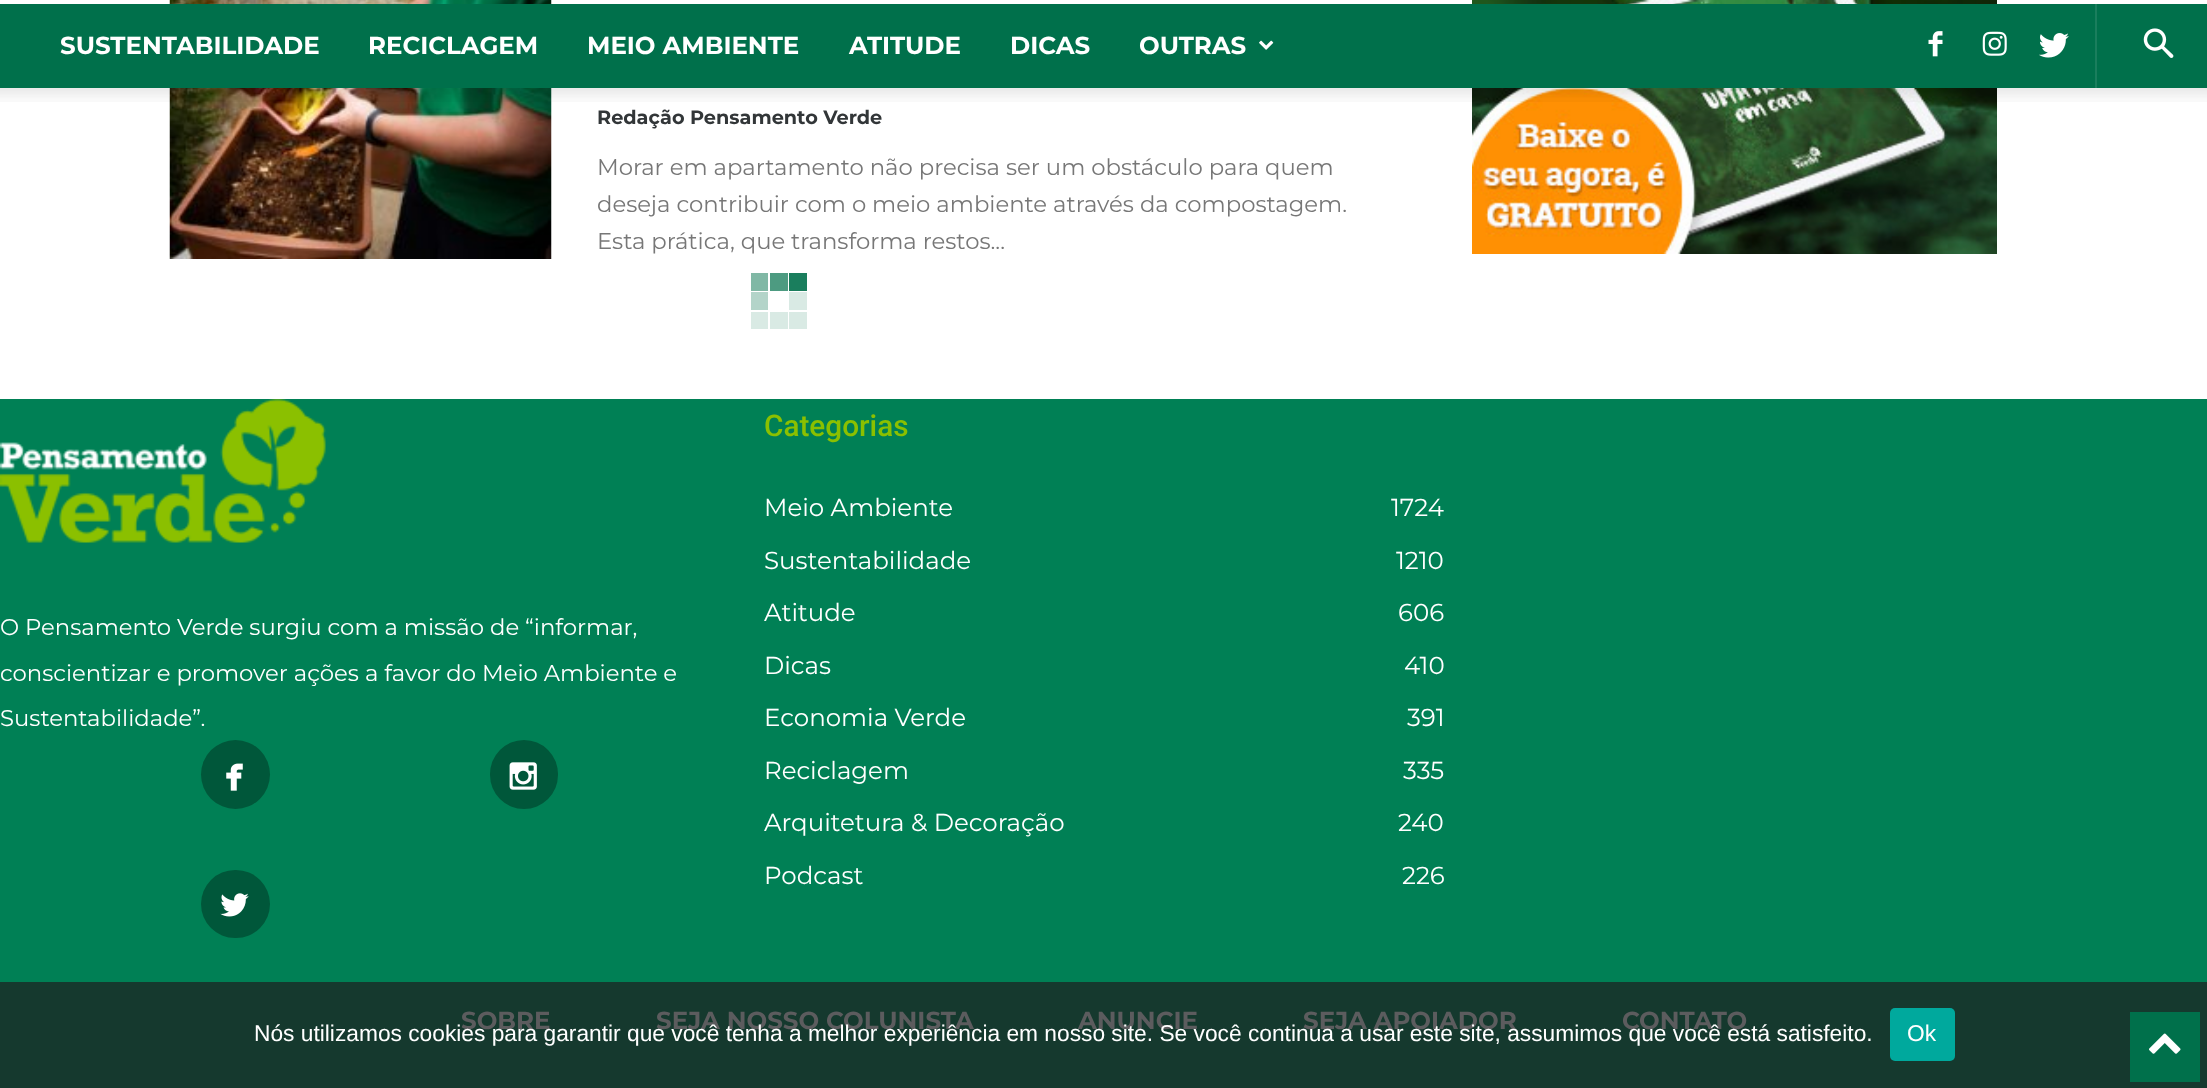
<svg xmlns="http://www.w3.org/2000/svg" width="2207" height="1088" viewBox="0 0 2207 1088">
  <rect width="100%" height="100%" fill="rgb(255,255,255)"/>
  <image x="169" y="0" width="383" height="259" href="pic7.png"/>
  <image x="1472" y="0" width="525" height="254" href="pic8.png"/>
  <rect x="0" y="4" width="2207" height="84" fill="rgb(0,112,75)"/>
  <g font-family="Montserrat" font-size="24.5" font-weight="bold" fill="rgb(255,255,255)">
    <text x="60" y="54">SUSTENTABILIDADE</text>
    <text x="368" y="54">RECICLAGEM</text>
    <text x="587" y="54">MEIO AMBIENTE</text>
    <text x="849" y="54">ATITUDE</text>
    <text x="1010" y="54">DICAS</text>
    <text x="1139" y="54">OUTRAS</text>
  </g>
  <image x="1259" y="40" width="15" height="10" href="pic1.png"/>
  <rect x="2095" y="4" width="2" height="84" fill="rgb(26,126,93)"/>
  <image x="1928" y="31" width="15" height="26" href="pic2.png"/>
  <image x="1982" y="31" width="25" height="25" href="pic3.png"/>
  <image x="2039" y="33" width="30" height="25" href="pic4.png"/>
  <image x="2143" y="28" width="31" height="30" href="pic5.png"/>
  <image x="0" y="88" width="2207" height="14" href="pic6.png"/>
  <text x="597" y="124" font-family="Montserrat" font-size="19.25" font-weight="bold" fill="rgb(50,54,56)">Redação Pensamento Verde</text>
  <g font-family="Montserrat" font-size="22.75" fill="rgb(119,119,119)">
    <text>
      <tspan x="597" y="175">Morar em apartamento não precisa ser um obstáculo para quem</tspan>
      <tspan x="597" y="212">deseja contribuir com o meio ambiente através da compostagem.</tspan>
      <tspan x="597" y="249">Esta prática, que transforma restos...</tspan>
    </text>
  </g>
  <rect x="751" y="273" width="17" height="18" fill="rgb(128,184,165)"/>
  <rect x="770" y="273" width="18" height="18" fill="rgb(77,155,129)"/>
  <rect x="789" y="273" width="18" height="18" fill="rgb(26,126,93)"/>
  <rect x="751" y="292" width="17" height="18" fill="rgb(179,212,201)"/>
  <rect x="789" y="292" width="18" height="18" fill="rgb(217,234,228)"/>
  <rect x="751" y="312" width="17" height="17" fill="rgb(217,234,228)"/>
  <rect x="770" y="312" width="18" height="17" fill="rgb(217,234,228)"/>
  <rect x="789" y="312" width="18" height="17" fill="rgb(217,234,228)"/>
  <rect x="0" y="399" width="2207" height="583" fill="rgb(0,128,85)"/>
  <rect x="0" y="982" width="2207" height="106" fill="rgb(21,57,46)"/>
  <image x="0" y="399" width="326" height="144" href="pic9.png"/>
  <g font-family="Montserrat" font-size="22.75" fill="rgb(255,255,255)">
    <text x="0" y="635">O Pensamento Verde surgiu com a missão de “informar,</text>
    <text>
      <tspan x="0" y="681">conscientizar e promover ações a favor do Meio Ambiente e</tspan>
      <tspan x="0" y="726">Sustentabilidade”.</tspan>
    </text>
  </g>
  <circle cx="235.5" cy="774.5" r="34.5" fill="rgb(0,87,58)"/>
  <image x="226" y="763" width="17" height="28" href="pic10.png"/>
  <rect x="490" y="740" width="68" height="69" rx="34" fill="rgb(0,87,58)"/>
  <image x="509" y="762" width="28" height="28" href="pic11.png"/>
  <rect x="201" y="870" width="69" height="68" rx="34" fill="rgb(0,87,58)"/>
  <image x="220" y="893" width="29" height="24" href="pic12.png"/>
  <text x="764" y="436" font-family="Roboto" font-size="29.75" font-weight="500" fill="rgb(139,192,0)">Categorias</text>
  <g font-family="Montserrat" font-size="24.5" fill="rgb(255,255,255)">
    <text x="764" y="516">Meio Ambiente</text>
    <text x="1391" y="516">1724</text>
    <text x="764" y="569">Sustentabilidade</text>
    <text x="1396" y="569">1210</text>
    <text x="764" y="621">Atitude</text>
    <text x="1398" y="621">606</text>
    <text x="764" y="674">Dicas</text>
    <text x="1404" y="674">410</text>
    <text x="764" y="726">Economia Verde</text>
    <text x="1407" y="726">391</text>
    <text x="764" y="779">Reciclagem</text>
    <text x="1403" y="779">335</text>
    <text x="764" y="831">Arquitetura &amp; Decoração</text>
    <text x="1398" y="831">240</text>
    <text x="764" y="884">Podcast</text>
    <text x="1402" y="884">226</text>
  </g>
  <g font-family="Montserrat" font-size="24.5" font-weight="bold" fill="rgb(92,92,94)">
    <text x="461" y="1029">SOBRE</text>
    <text x="656" y="1029">SEJA NOSSO COLUNISTA</text>
    <text x="1078" y="1029">ANUNCIE</text>
    <text x="1303" y="1029">SEJA APOIADOR</text>
    <text x="1622" y="1029">CONTATO</text>
  </g>
  <text x="254" y="1041" font-family="Liberation Sans" font-size="22.75" fill="rgb(255,255,255)">Nós utilizamos cookies para garantir que você tenha a melhor experiência em nosso site. Se você continua a usar este site, assumimos que você está satisfeito.</text>
  <rect x="1890" y="1008" width="65" height="53" rx="5" fill="rgb(0,169,157)"/>
  <text x="1907" y="1041" font-family="Liberation Sans" font-size="22.75" fill="rgb(255,255,255)">Ok</text>
  <rect x="2130" y="1012" width="70" height="70" fill="rgb(0,112,75)"/>
  <image x="2149" y="1033" width="32" height="21" href="pic13.png"/>
</svg>
